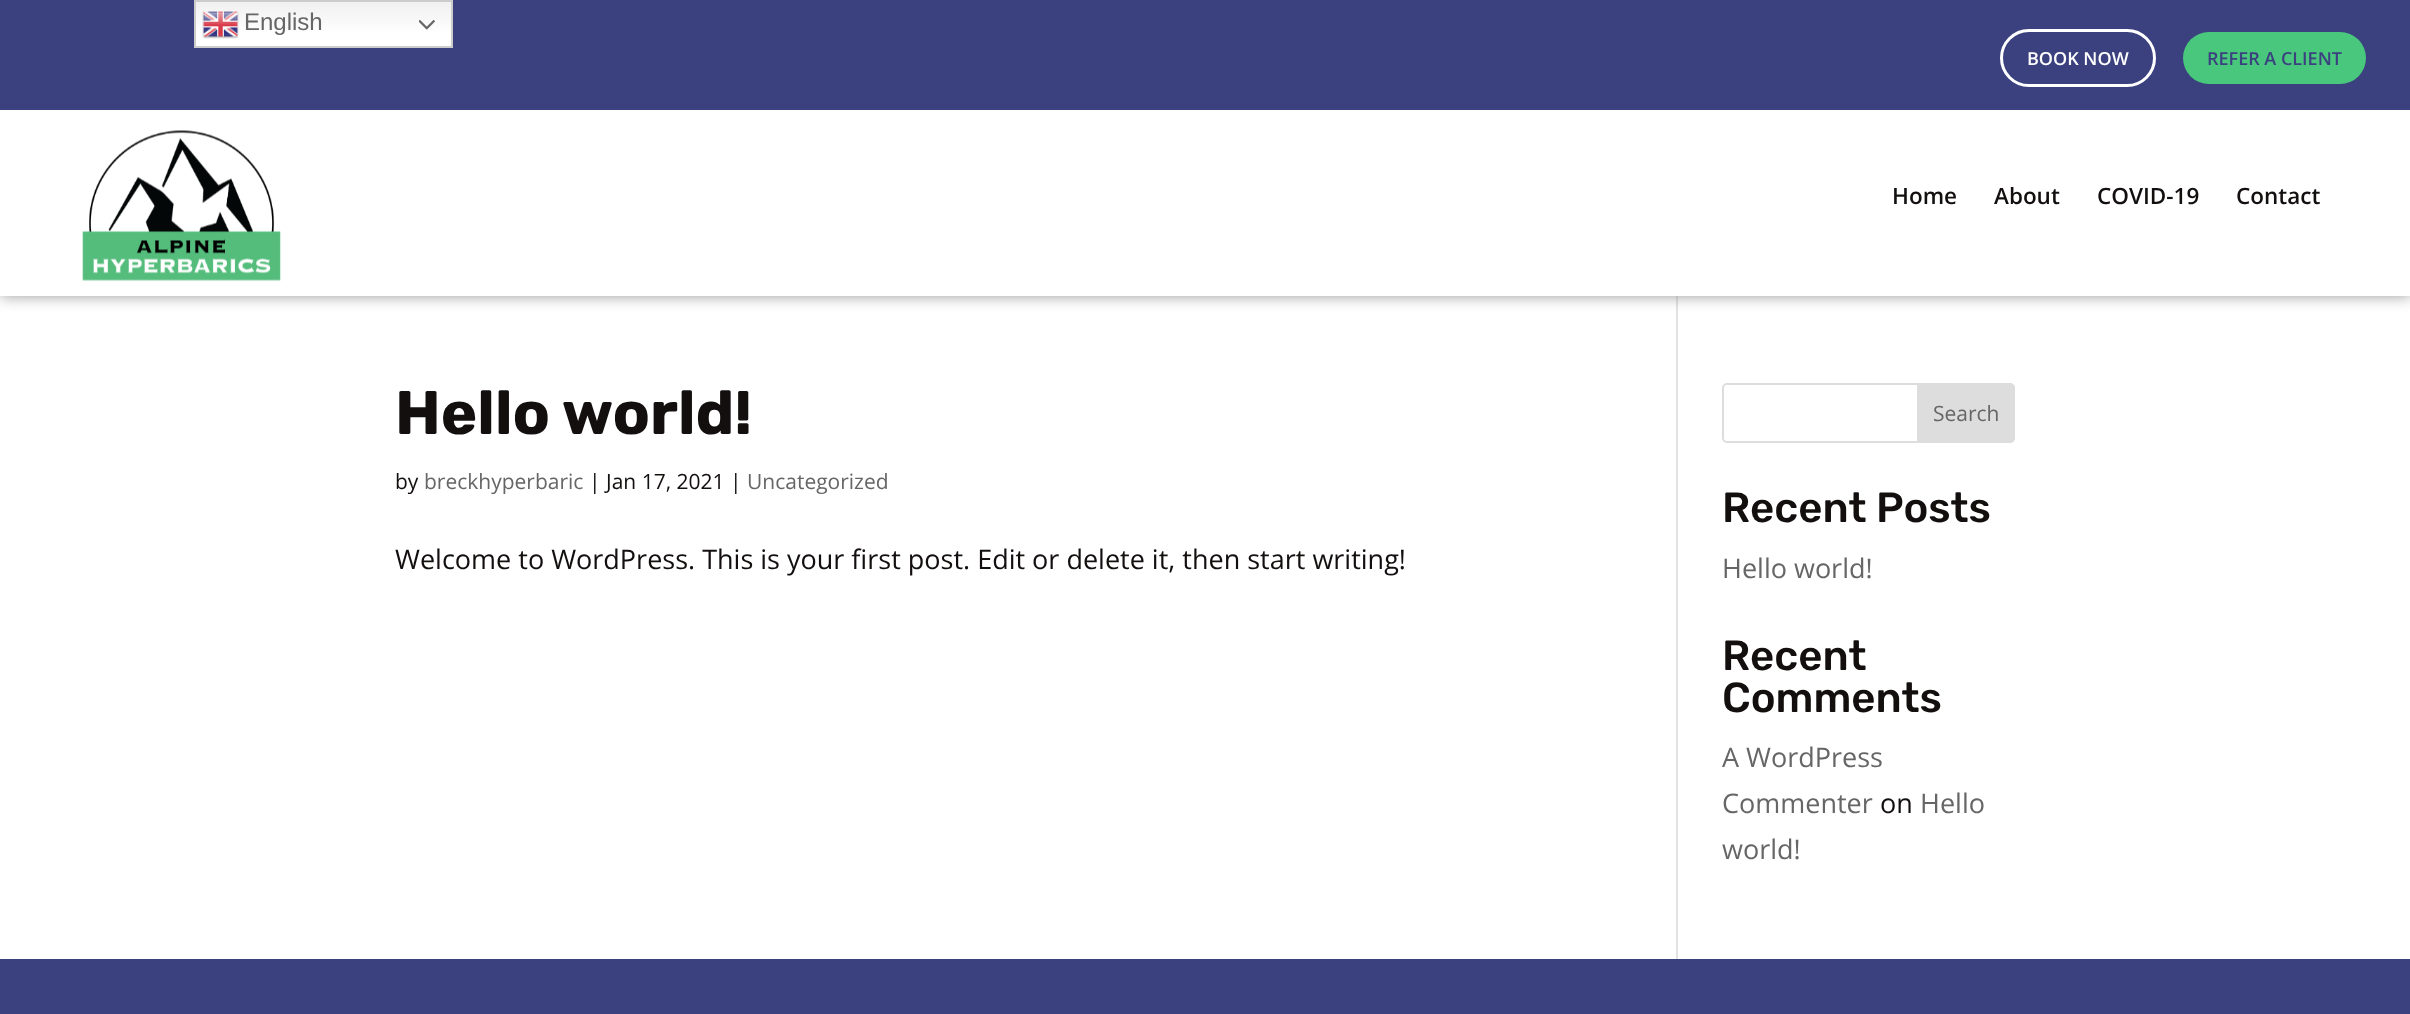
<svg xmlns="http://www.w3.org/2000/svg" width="2410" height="1014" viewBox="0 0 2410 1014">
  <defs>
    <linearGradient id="g1" gradientUnits="userSpaceOnUse" x1="323" y1="0" x2="323" y2="48"><stop offset="0" stop-color="rgb(239,239,239)"/><stop offset="0.7" stop-color="rgb(255,255,255)"/></linearGradient>
  </defs>
  <rect width="100%" height="100%" fill="rgb(255,255,255)"/>
  <rect x="1676" y="296" width="2" height="663" fill="rgb(226,226,226)"/>
  <rect x="0" y="110" width="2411" height="186" fill="rgba(128,128,128,0.8)" filter="blur(7.5px)"/>
  <rect x="0" y="0" width="2410" height="110" fill="rgb(59,65,127)"/>
  <rect x="196" y="2" width="255" height="44" fill="url(#g1)"/>
  <rect x="195" y="1" width="257" height="46" fill="none" stroke="rgb(204,204,204)" stroke-width="2"/>
  <image x="202" y="11" width="37" height="28" href="pic1.png"/>
  <text x="244" y="30" font-family="Liberation Sans" font-size="24" fill="rgb(102,102,102)">English</text>
  <image x="419" y="20" width="16" height="10" href="pic2.png"/>
  <rect x="2001.5" y="30.5" width="153" height="55" rx="27.5" fill="none" stroke="rgb(255,255,255)" stroke-width="3"/>
  <text x="2027" y="65" font-family="Open Sans" font-size="18" font-weight="600" fill="rgb(255,255,255)">BOOK NOW</text>
  <rect x="2183" y="32" width="183" height="52" rx="26" fill="rgb(72,199,125)"/>
  <text x="2207" y="65" font-family="Open Sans" font-size="18" font-weight="600" fill="rgb(59,65,127)">REFER A CLIENT</text>
  <rect x="0" y="110" width="2410" height="186" fill="rgb(255,255,255)"/>
  <image x="82" y="130" width="199" height="151" href="pic3.png"/>
  <g font-family="Open Sans" font-size="22.5" font-weight="600" fill="rgb(18,15,14)">
    <text x="1892" y="204">Home</text>
    <text x="1994" y="204">About</text>
    <text x="2097" y="204">COVID-19</text>
    <text x="2236" y="204">Contact</text>
  </g>
  <text x="395" y="434" font-family="Rubik" font-size="61.5" font-weight="300" fill="rgb(18,15,14)">Hello world!</text>
  <text x="395" y="489" font-family="Open Sans" font-size="21" fill="rgb(18,15,14)">by</text>
  <text x="424" y="489" font-family="Open Sans" font-size="21" fill="rgb(102,102,102)">breckhyperbaric</text>
  <text x="589" y="489" font-family="Open Sans" font-size="21" fill="rgb(18,15,14)">| Jan 17, 2021 |</text>
  <text x="747" y="489" font-family="Open Sans" font-size="21" fill="rgb(102,102,102)">Uncategorized</text>
  <text x="395" y="569" font-family="Open Sans" font-size="27" fill="rgb(18,15,14)">Welcome to WordPress. This is your first post. Edit or delete it, then start writing!</text>
  <rect x="1723" y="384" width="291" height="58" rx="4" fill="none" stroke="rgb(221,221,221)" stroke-width="2"/>
  <path d="M1918 384H2010C2012 384 2014 386 2014 388V438C2014 440 2012 442 2010 442H1918Z" fill="rgb(221,221,221)" stroke="rgb(221,221,221)" stroke-width="2"/>
  <text x="1933" y="421" font-family="Open Sans" font-size="21" fill="rgb(102,102,102)">Search</text>
  <text x="1722" y="522" font-family="'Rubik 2'" font-size="42" font-weight="300" fill="rgb(18,15,14)">Recent Posts</text>
  <text x="1722" y="578" font-family="Open Sans" font-size="27" fill="rgb(102,102,102)">Hello world!</text>
  <g font-family="'Rubik 2'" font-size="42" font-weight="300" fill="rgb(18,15,14)">
    <text>
      <tspan x="1722" y="670">Recent</tspan>
      <tspan x="1722" y="712">Comments</tspan>
    </text>
  </g>
  <g font-family="Open Sans" font-size="27" fill="rgb(102,102,102)">
    <text>
      <tspan x="1722" y="767">A WordPress</tspan>
      <tspan x="1722" y="813">Commenter</tspan>
    </text>
  </g>
  <text x="1880" y="813" font-family="Open Sans" font-size="27" fill="rgb(18,15,14)">on</text>
  <g font-family="Open Sans" font-size="27" fill="rgb(102,102,102)">
    <text x="1920" y="813">Hello</text>
    <text x="1722" y="859">world!</text>
  </g>
  <rect x="0" y="959" width="2410" height="55" fill="rgb(59,65,127)"/>
</svg>
